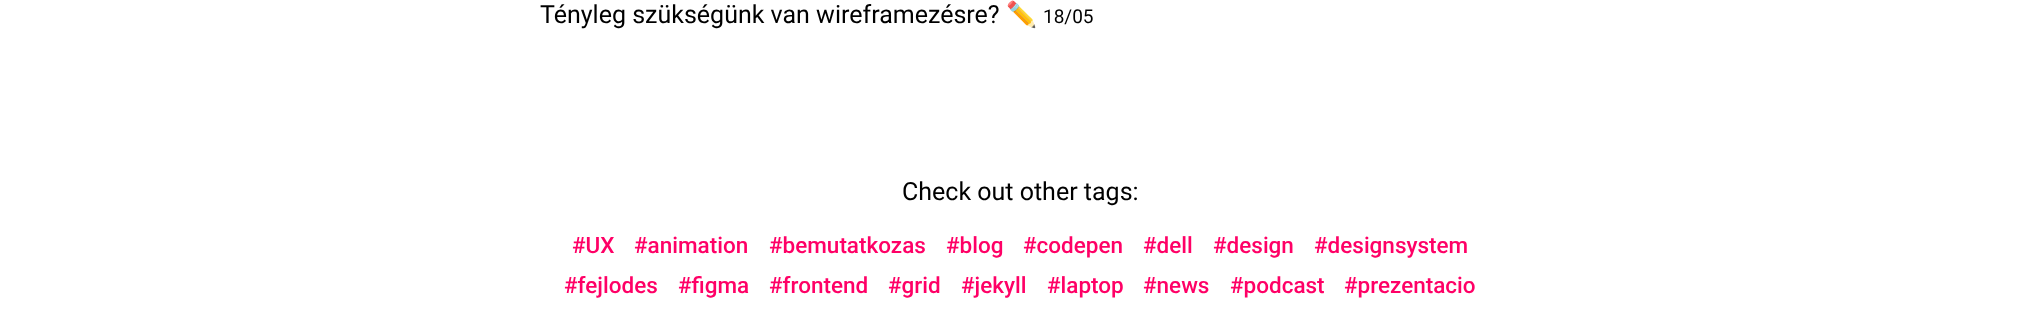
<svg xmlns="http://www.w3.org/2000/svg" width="2040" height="316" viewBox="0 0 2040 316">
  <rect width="100%" height="100%" fill="rgb(255,255,255)"/>
  <text x="540" y="23" font-family="Roboto" font-size="25" fill="rgb(0,0,0)">Tényleg szükségünk van wireframezésre?</text>
  <text x="1006" y="23" font-family="Noto Color Emoji" font-size="25" fill="rgb(0,0,0)">✏️</text>
  <text x="1043" y="23" font-family="Roboto" font-size="19" fill="rgb(0,0,0)">18/05</text>
  <text x="902" y="200" font-family="Roboto" font-size="25" fill="rgb(0,0,0)">Check out other tags:</text>
  <g font-family="Roboto" font-size="22.5" font-weight="500" fill="rgb(255,0,102)">
    <text x="572" y="253">#UX</text>
    <text x="634" y="253">#animation</text>
    <text x="769" y="253">#bemutatkozas</text>
    <text x="946" y="253">#blog</text>
    <text x="1023" y="253">#codepen</text>
    <text x="1143" y="253">#dell</text>
    <text x="1213" y="253">#design</text>
    <text x="1314" y="253">#designsystem</text>
    <text x="564" y="293">#fejlodes</text>
    <text x="678" y="293">#figma</text>
    <text x="769" y="293">#frontend</text>
    <text x="888" y="293">#grid</text>
    <text x="961" y="293">#jekyll</text>
    <text x="1047" y="293">#laptop</text>
    <text x="1143" y="293">#news</text>
    <text x="1230" y="293">#podcast</text>
    <text x="1344" y="293">#prezentacio</text>
  </g>
</svg>
